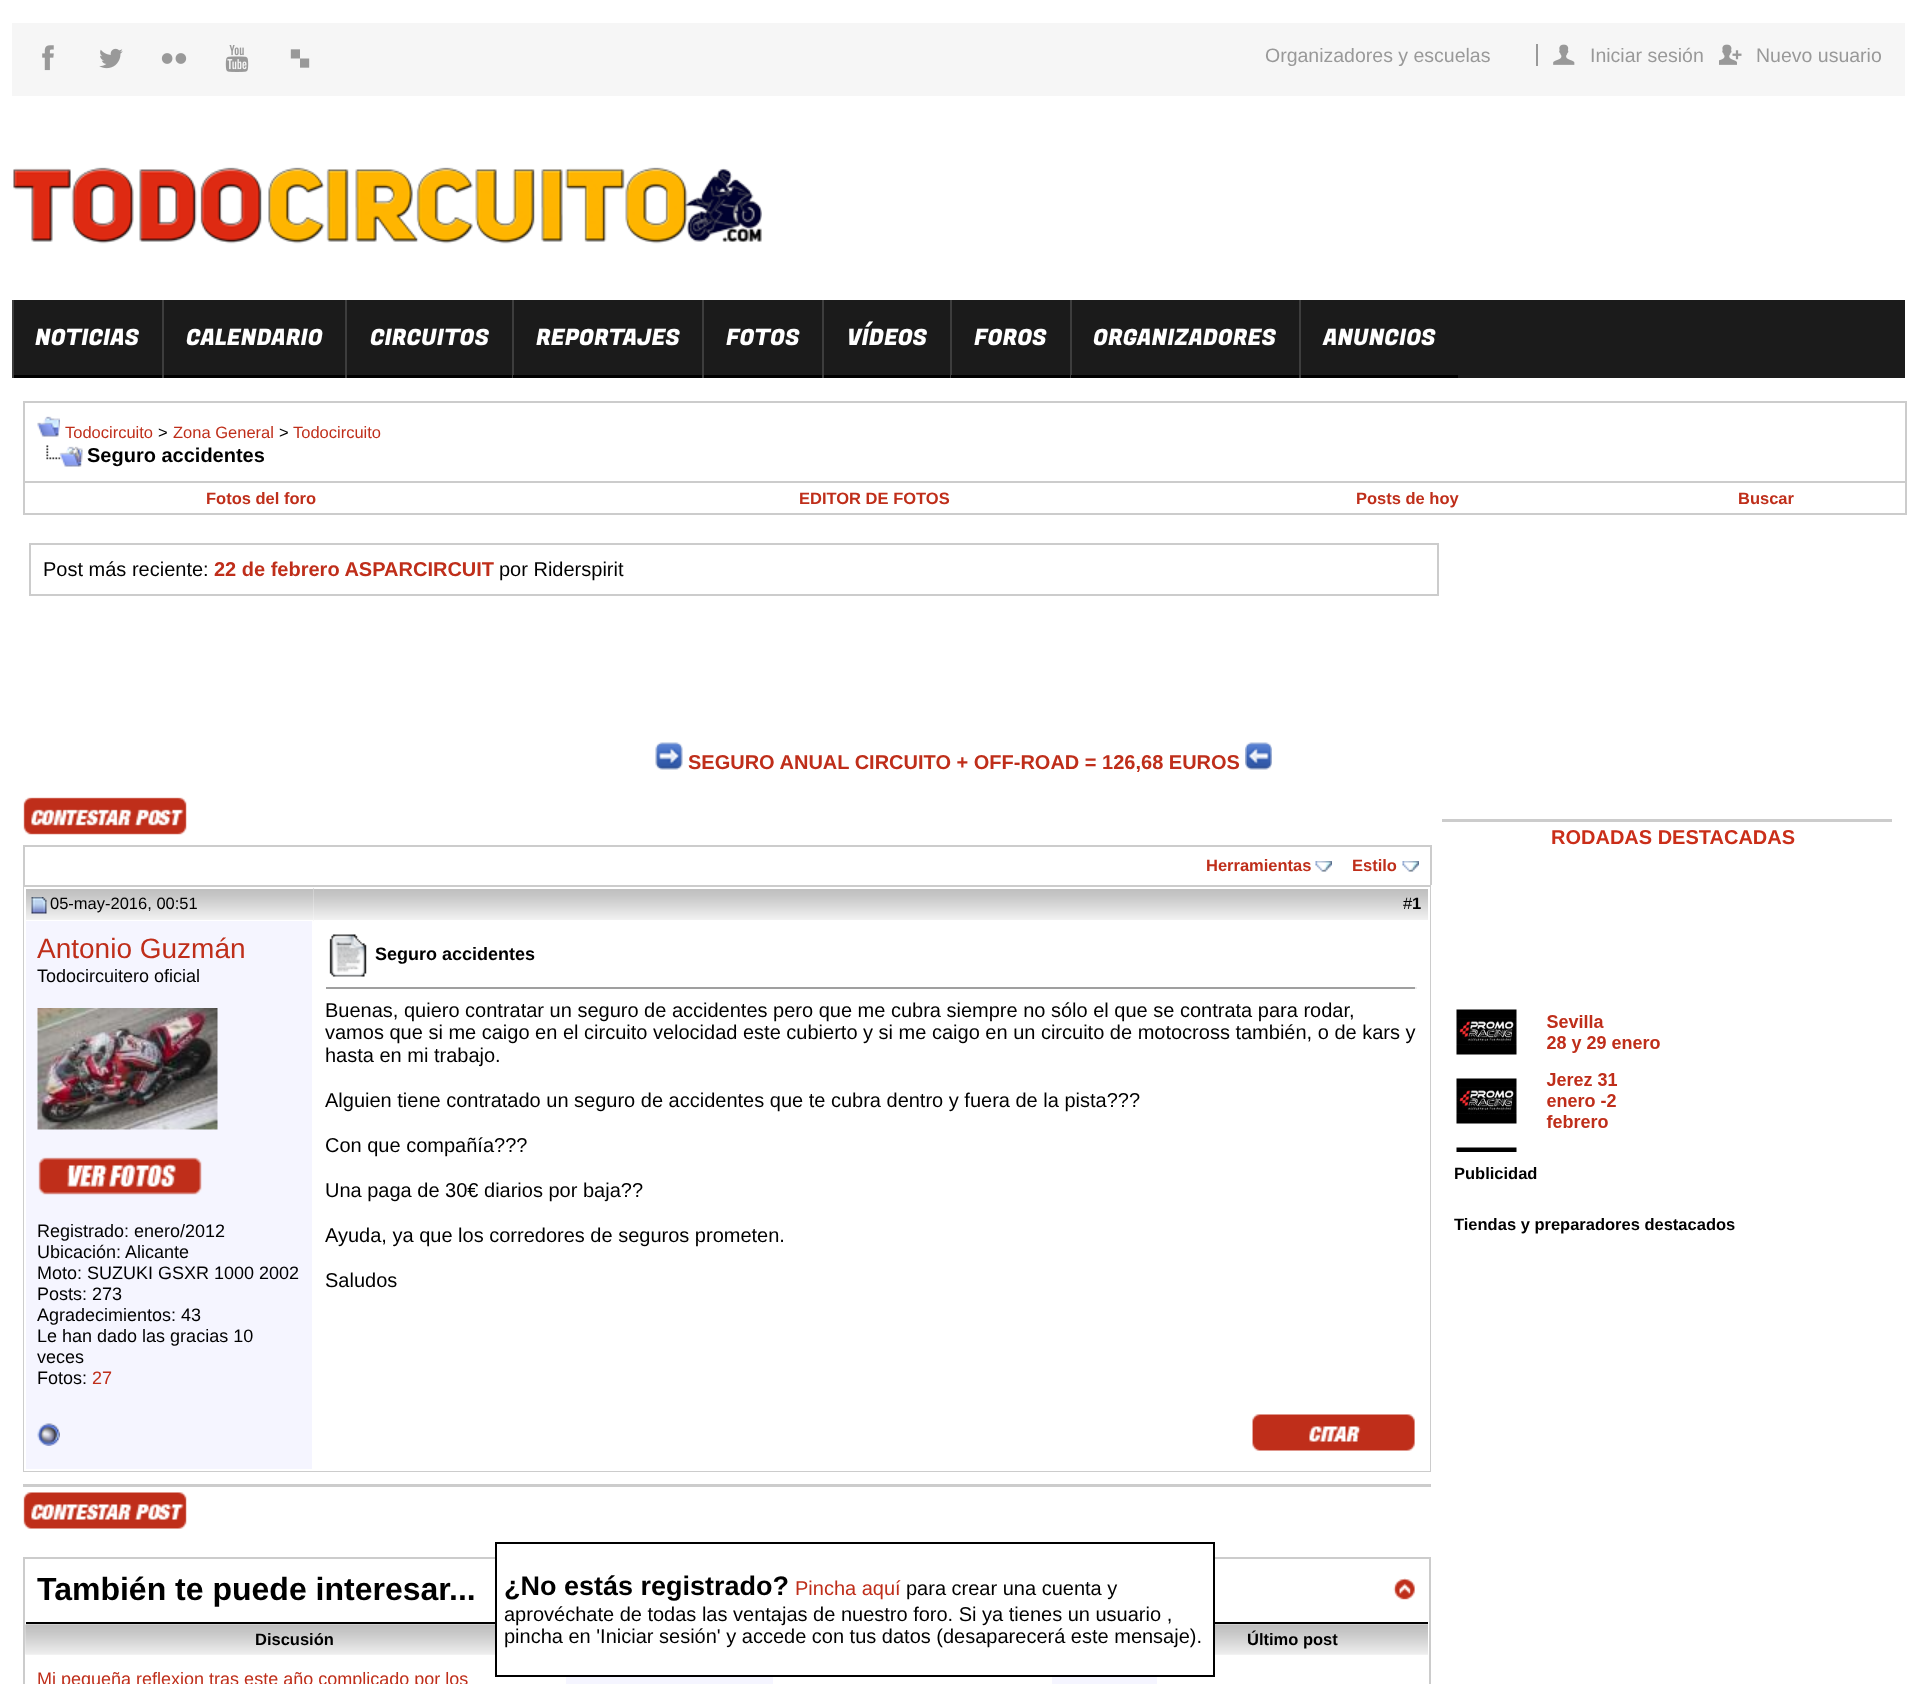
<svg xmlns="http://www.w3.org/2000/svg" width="1927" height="1684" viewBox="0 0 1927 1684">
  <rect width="100%" height="100%" fill="rgb(255,255,255)"/>
  <rect x="12" y="23" width="1893" height="73" fill="rgb(246,246,246)"/>
  <image x="42" y="45" width="12" height="26" href="pic1.png"/>
  <image x="99" y="48" width="24" height="21" href="pic2.png"/>
  <image x="161" y="53" width="26" height="11" href="pic3.png"/>
  <image x="225" y="45" width="24" height="27" href="pic4.png"/>
  <image x="290" y="49" width="20" height="19" href="pic5.png"/>
  <text x="1265" y="62" font-family="Liberation Sans" font-size="19.5" fill="rgb(153,153,153)">Organizadores y escuelas</text>
  <rect x="1536" y="44" width="2" height="22" fill="rgb(153,153,153)"/>
  <image x="1553" y="44" width="22" height="21" href="pic6.png"/>
  <text x="1590" y="62" font-family="Liberation Sans" font-size="19.5" fill="rgb(153,153,153)">Iniciar sesión</text>
  <image x="1719" y="44" width="23" height="21" href="pic7.png"/>
  <text x="1756" y="62" font-family="Liberation Sans" font-size="19.5" fill="rgb(153,153,153)">Nuevo usuario</text>
  <image x="13" y="167" width="749" height="77" href="pic8.png"/>
  <rect x="14" y="300" width="1891" height="78" fill="rgb(27,27,27)"/>
  <rect x="12" y="300" width="2" height="78" fill="rgb(61,61,61)"/>
  <rect x="14" y="375" width="148" height="3" fill="rgb(0,0,0)"/>
  <text x="35" y="345" font-family="Fugaz One" font-size="22.5" fill="rgb(255,255,255)">NOTICIAS</text>
  <rect x="162" y="300" width="2" height="78" fill="rgb(61,61,61)"/>
  <rect x="164" y="375" width="181" height="3" fill="rgb(0,0,0)"/>
  <text x="186" y="345" font-family="Fugaz One" font-size="22.5" fill="rgb(255,255,255)">CALENDARIO</text>
  <rect x="345" y="300" width="2" height="78" fill="rgb(61,61,61)"/>
  <rect x="347" y="375" width="165" height="3" fill="rgb(0,0,0)"/>
  <text x="370" y="345" font-family="Fugaz One" font-size="22.5" fill="rgb(255,255,255)">CIRCUITOS</text>
  <rect x="512" y="300" width="2" height="78" fill="rgb(61,61,61)"/>
  <rect x="513" y="375" width="189" height="3" fill="rgb(0,0,0)"/>
  <text x="536" y="345" font-family="Fugaz One" font-size="22.5" fill="rgb(255,255,255)">REPORTAJES</text>
  <rect x="702" y="300" width="2" height="78" fill="rgb(61,61,61)"/>
  <rect x="704" y="375" width="118" height="3" fill="rgb(0,0,0)"/>
  <text x="726" y="345" font-family="Fugaz One" font-size="22.5" fill="rgb(255,255,255)">FOTOS</text>
  <rect x="822" y="300" width="2" height="78" fill="rgb(61,61,61)"/>
  <rect x="824" y="375" width="126" height="3" fill="rgb(0,0,0)"/>
  <text x="847" y="345" font-family="Fugaz One" font-size="22.5" fill="rgb(255,255,255)">VÍDEOS</text>
  <rect x="950" y="300" width="2" height="78" fill="rgb(61,61,61)"/>
  <rect x="951" y="375" width="119" height="3" fill="rgb(0,0,0)"/>
  <text x="974" y="345" font-family="Fugaz One" font-size="22.5" fill="rgb(255,255,255)">FOROS</text>
  <rect x="1070" y="300" width="2" height="78" fill="rgb(61,61,61)"/>
  <rect x="1071" y="375" width="228" height="3" fill="rgb(0,0,0)"/>
  <text x="1093" y="345" font-family="Fugaz One" font-size="22.5" fill="rgb(255,255,255)">ORGANIZADORES</text>
  <rect x="1299" y="300" width="2" height="78" fill="rgb(61,61,61)"/>
  <rect x="1301" y="375" width="157" height="3" fill="rgb(0,0,0)"/>
  <text x="1323" y="345" font-family="Fugaz One" font-size="22.5" fill="rgb(255,255,255)">ANUNCIOS</text>
  <rect x="24" y="402" width="1882" height="80" fill="none" stroke="rgb(204,204,204)" stroke-width="2"/>
  <image x="37" y="416" width="23" height="21" href="pic9.png"/>
  <text x="65" y="438" font-family="Liberation Sans" font-size="16.5" fill="rgb(191,46,26)">Todocircuito</text>
  <text x="158" y="438" font-family="Liberation Sans" font-size="16.5" fill="rgb(0,0,0)">&gt;</text>
  <text x="173" y="438" font-family="Liberation Sans" font-size="16.5" fill="rgb(191,46,26)">Zona General</text>
  <text x="279" y="438" font-family="Liberation Sans" font-size="16.5" fill="rgb(0,0,0)">&gt;</text>
  <text x="293" y="438" font-family="Liberation Sans" font-size="16.5" fill="rgb(191,46,26)">Todocircuito</text>
  <image x="46" y="445" width="37" height="22" href="pic10.png"/>
  <text x="87" y="462" font-family="Liberation Sans" font-size="20" font-weight="bold" fill="rgb(0,0,0)">Seguro accidentes</text>
  <rect x="1905" y="483" width="2" height="32" fill="rgb(204,204,204)"/>
  <rect x="23" y="513" width="1884" height="2" fill="rgb(204,204,204)"/>
  <rect x="23" y="483" width="2" height="32" fill="rgb(204,204,204)"/>
  <g font-family="Liberation Sans" font-size="16.5" font-weight="bold" fill="rgb(191,46,26)">
    <text x="206" y="504">Fotos del foro</text>
    <text x="799" y="504">EDITOR DE FOTOS</text>
    <text x="1356" y="504">Posts de hoy</text>
    <text x="1738" y="504">Buscar</text>
  </g>
  <rect x="30" y="544" width="1408" height="51" fill="none" stroke="rgb(204,204,204)" stroke-width="2"/>
  <text x="43" y="576" font-family="Liberation Sans" font-size="20" fill="rgb(0,0,0)">Post más reciente:</text>
  <text x="214" y="576" font-family="Liberation Sans" font-size="20" font-weight="bold" fill="rgb(191,46,26)">22 de febrero ASPARCIRCUIT</text>
  <text x="499" y="576" font-family="Liberation Sans" font-size="20" fill="rgb(0,0,0)">por Riderspirit</text>
  <image x="655" y="742" width="28" height="28" href="pic11.png"/>
  <text x="688" y="769" font-family="Liberation Sans" font-size="20" font-weight="bold" fill="rgb(191,46,26)">SEGURO ANUAL CIRCUITO + OFF-ROAD = 126,68 EUROS</text>
  <image x="1245" y="742" width="27" height="28" href="pic12.png"/>
  <image x="23" y="797" width="164" height="38" href="pic13.png"/>
  <rect x="23" y="845" width="1408" height="2" fill="rgb(204,204,204)"/>
  <rect x="1430" y="845" width="2" height="40" fill="rgb(204,204,204)"/>
  <rect x="23" y="845" width="2" height="40" fill="rgb(204,204,204)"/>
  <text x="1206" y="871" font-family="Liberation Sans" font-size="16.5" font-weight="bold" fill="rgb(191,46,26)">Herramientas</text>
  <image x="1315" y="861" width="17" height="11" href="pic14.png"/>
  <text x="1352" y="871" font-family="Liberation Sans" font-size="16.5" font-weight="bold" fill="rgb(191,46,26)">Estilo</text>
  <image x="1402" y="861" width="17" height="11" href="pic14.png"/>
  <rect x="24" y="886" width="1406" height="585" fill="none" stroke="rgb(204,204,204)" stroke-width="2"/>
  <image x="26" y="889" width="288" height="31" href="pic15.png"/>
  <rect x="24" y="887" width="1" height="2" fill="rgb(255,255,255)"/>
  <rect x="24" y="887" width="1" height="514" fill="rgb(255,255,255)"/>
  <image x="31" y="897" width="16" height="17" href="pic16.png"/>
  <text x="50" y="909" font-family="Liberation Sans" font-size="16.5" fill="rgb(0,0,0)">05-may-2016, 00:51</text>
  <image x="313" y="888" width="1115" height="33" href="pic17.png"/>
  <rect x="314" y="887" width="1116" height="2" fill="rgb(255,255,255)"/>
  <rect x="1429" y="887" width="1" height="582" fill="rgb(255,255,255)"/>
  <rect x="314" y="920" width="1116" height="1" fill="rgb(255,255,255)"/>
  <text x="1403" y="909" font-family="Liberation Sans" font-size="16.5" fill="rgb(0,0,0)">#</text>
  <text x="1412" y="909" font-family="Liberation Sans" font-size="16.5" font-weight="bold" fill="rgb(0,0,0)">1</text>
  <rect x="26" y="921" width="286" height="548" fill="rgb(245,245,255)"/>
  <text x="37" y="958" font-family="Liberation Sans" font-size="28" fill="rgb(191,46,26)">Antonio Guzmán</text>
  <text x="37" y="982" font-family="Liberation Sans" font-size="18" fill="rgb(0,0,0)">Todocircuitero oficial</text>
  <image x="37" y="1008" width="181" height="122" href="pic18.png"/>
  <image x="38" y="1157" width="164" height="38" href="pic19.png"/>
  <g font-family="Liberation Sans" font-size="18" fill="rgb(0,0,0)">
    <text>
      <tspan x="37" y="1237">Registrado: enero/2012</tspan>
      <tspan x="37" y="1258">Ubicación: Alicante</tspan>
      <tspan x="37" y="1279">Moto: SUZUKI GSXR 1000 2002</tspan>
      <tspan x="37" y="1300">Posts: 273</tspan>
      <tspan x="37" y="1321">Agradecimientos: 43</tspan>
      <tspan x="37" y="1342">Le han dado las gracias 10</tspan>
      <tspan x="37" y="1363">veces</tspan>
      <tspan x="37" y="1384">Fotos:</tspan>
    </text>
  </g>
  <text x="92" y="1384" font-family="Liberation Sans" font-size="18" fill="rgb(191,46,26)">27</text>
  <image x="329" y="934" width="38" height="43" href="pic20.png"/>
  <text x="375" y="960" font-family="Liberation Sans" font-size="18" font-weight="bold" fill="rgb(0,0,0)">Seguro accidentes</text>
  <rect x="326" y="987" width="1090" height="2" fill="rgb(159,159,159)"/>
  <rect x="1415" y="987" width="2" height="2" fill="rgb(238,238,238)"/>
  <g font-family="Liberation Sans" font-size="20" fill="rgb(0,0,0)">
    <text>
      <tspan x="325" y="1017">Buenas, quiero contratar un seguro de accidentes pero que me cubra siempre no sólo el que se contrata para rodar,</tspan>
      <tspan x="325" y="1039">vamos que si me caigo en el circuito velocidad este cubierto y si me caigo en un circuito de motocross también, o de kars y</tspan>
      <tspan x="325" y="1062">hasta en mi trabajo.</tspan>
    </text>
    <text x="325" y="1107">Alguien tiene contratado un seguro de accidentes que te cubra dentro y fuera de la pista???</text>
    <text x="325" y="1152">Con que compañía???</text>
    <text x="325" y="1197">Una paga de 30€ diarios por baja??</text>
    <text x="325" y="1242">Ayuda, ya que los corredores de seguros prometen.</text>
    <text x="325" y="1287">Saludos</text>
  </g>
  <rect x="24" y="1469" width="1406" height="2" fill="rgb(255,255,255)"/>
  <rect x="24" y="1401" width="1" height="69" fill="rgb(255,255,255)"/>
  <image x="37" y="1423" width="23" height="23" href="pic21.png"/>
  <image x="1252" y="1414" width="163" height="37" href="pic22.png"/>
  <rect x="23" y="1484" width="1408" height="3" fill="rgb(204,204,204)"/>
  <image x="23" y="1492" width="164" height="37" href="pic23.png"/>
  <rect x="24" y="1558" width="1406" height="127" fill="none" stroke="rgb(204,204,204)" stroke-width="2"/>
  <rect x="26" y="1622" width="1402" height="2" fill="rgb(0,0,0)"/>
  <text x="37" y="1600" font-family="Liberation Sans" font-size="32" font-weight="bold" fill="rgb(0,0,0)">También te puede interesar...</text>
  <image x="1393" y="1578" width="22" height="22" href="pic24.png"/>
  <image x="25" y="1624" width="470" height="31" href="pic25.png"/>
  <text x="255" y="1645" font-family="Liberation Sans" font-size="16.5" font-weight="bold" fill="rgb(0,0,0)">Discusión</text>
  <image x="1215" y="1624" width="213" height="31" href="pic26.png"/>
  <text x="1247" y="1645" font-family="Liberation Sans" font-size="16.5" font-weight="bold" fill="rgb(0,0,0)">Último post</text>
  <text x="37" y="1685" font-family="Liberation Sans" font-size="18" fill="rgb(191,46,26)">Mi pequeña reflexion tras este año complicado por los</text>
  <rect x="566" y="1677" width="207" height="7" fill="rgb(245,245,255)"/>
  <rect x="1052" y="1677" width="105" height="7" fill="rgb(245,245,255)"/>
  <rect x="1442" y="819" width="450" height="3" fill="rgb(204,204,204)"/>
  <text x="1551" y="844" font-family="Liberation Sans" font-size="20" font-weight="bold" fill="rgb(202,46,25)">RODADAS DESTACADAS</text>
  <image x="1456" y="1009" width="204" height="143" href="pic27.png"/>
  <g font-family="Liberation Sans" font-size="16.5" font-weight="bold" fill="rgb(0,0,0)">
    <text x="1454" y="1179">Publicidad</text>
    <text x="1454" y="1230">Tiendas y preparadores destacados</text>
  </g>
  <rect x="497" y="1557" width="716" height="67" fill="rgb(255,255,255)"/>
  <rect x="496" y="1543" width="718" height="133" fill="none" stroke="rgb(0,0,0)" stroke-width="2"/>
  <text x="504" y="1595" font-family="Liberation Sans" font-size="27" font-weight="bold" fill="rgb(0,0,0)">¿No estás registrado?</text>
  <text x="795" y="1595" font-family="Liberation Sans" font-size="20" fill="rgb(191,46,26)">Pincha aquí</text>
  <g font-family="Liberation Sans" font-size="20" fill="rgb(0,0,0)">
    <text x="906" y="1595">para crear una cuenta y</text>
    <text>
      <tspan x="504" y="1621">aprovéchate de todas las ventajas de nuestro foro. Si ya tienes un usuario ,</tspan>
      <tspan x="504" y="1643">pincha en 'Iniciar sesión' y accede con tus datos (desaparecerá este mensaje).</tspan>
    </text>
  </g>
</svg>
